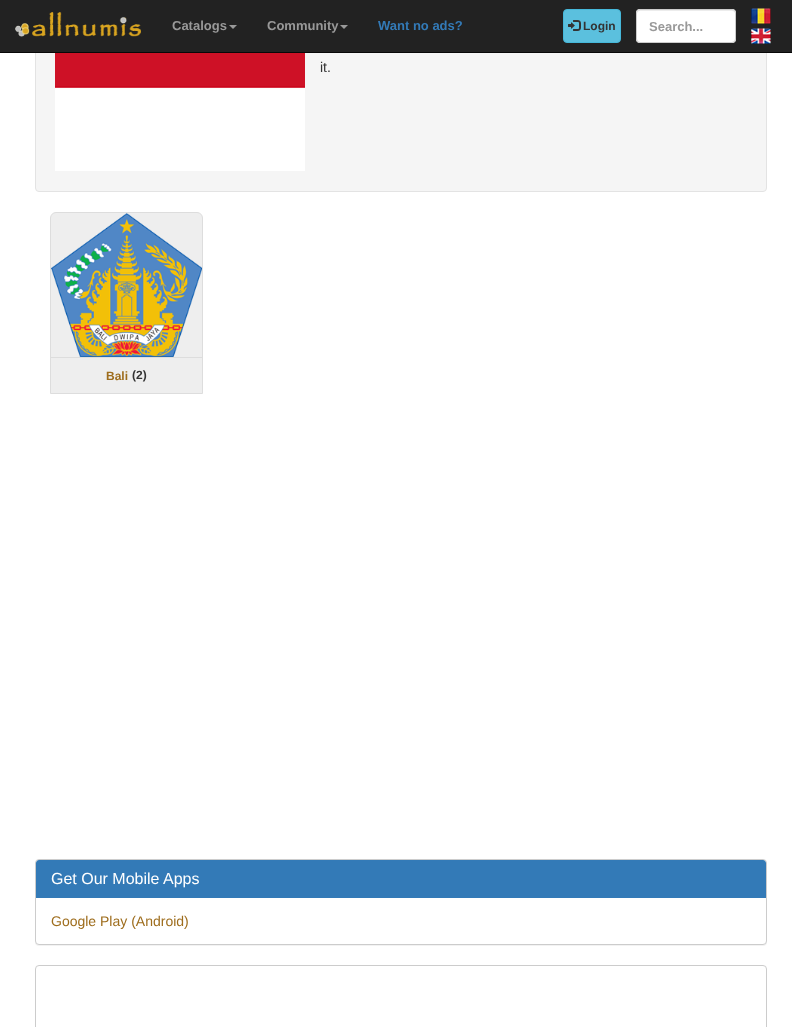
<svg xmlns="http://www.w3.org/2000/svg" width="792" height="1027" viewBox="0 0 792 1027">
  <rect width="100%" height="100%" fill="rgb(255,255,255)"/>
  <rect x="35.5" y="-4.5" width="731" height="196" rx="3.5" fill="rgb(245,245,245)" stroke="rgb(227,227,227)"/>
  <rect x="0" y="0" width="792" height="52" fill="rgb(34,34,34)"/>
  <rect x="0" y="52" width="792" height="1" fill="rgb(8,8,8)"/>
  <image x="15" y="12" width="126" height="25" href="pic1.png"/>
  <text x="172" y="30" font-family="Liberation Sans" font-size="13" font-weight="bold" fill="rgb(153,153,153)">Catalogs</text>
  <path d="M229 25H237L233 29Z" fill="rgb(153,153,153)"/>
  <text x="267" y="30" font-family="Liberation Sans" font-size="13" font-weight="bold" fill="rgb(153,153,153)">Community</text>
  <path d="M340 25H348L344 29Z" fill="rgb(153,153,153)"/>
  <text x="378" y="30" font-family="Liberation Sans" font-size="13" font-weight="bold" fill="rgb(51,122,183)">Want no ads?</text>
  <rect x="563.5" y="9.5" width="57" height="33" rx="3.5" fill="rgb(91,192,222)" stroke="rgb(70,184,218)"/>
  <image x="568" y="20" width="13" height="11" href="pic2.png"/>
  <text x="583" y="30" font-family="Liberation Sans" font-size="12" font-weight="bold" fill="rgb(51,51,51)">Login</text>
  <rect x="636" y="9" width="100" height="34" rx="4" fill="rgb(255,255,255)"/>
  <path d="M640 11H732C734 11 735 12 735 14C735 6 720 10 717 10H655C652 10 637 6 637 14C637 12 638 11 640 11Z" fill="rgb(236,236,236)"/>
  <rect x="636.5" y="9.5" width="99" height="33" rx="3.5" fill="none" stroke="rgb(204,204,204)"/>
  <text x="649" y="31" font-family="Liberation Sans" font-size="13" font-weight="bold" fill="rgb(153,153,153)">Search...</text>
  <image x="751" y="8" width="20" height="16" href="pic3.png"/>
  <image x="751" y="28" width="20" height="16" href="pic4.png"/>
  <image x="55" y="53" width="250" height="118" href="pic5.png"/>
  <text x="320" y="72" font-family="Liberation Sans" font-size="14" fill="rgb(51,51,51)">it.</text>
  <path d="M56 212.5H197C200 212.5 202.5 215 202.5 218V393.5H50.5V218C50.5 215 53 212.5 56 212.5Z" fill="rgb(238,238,238)" stroke="rgb(221,221,221)"/>
  <image x="51" y="213" width="151" height="144" href="pic6.png"/>
  <rect x="51" y="357" width="151" height="1" fill="rgb(221,221,221)"/>
  <text x="106" y="380" font-family="Liberation Sans" font-size="12" font-weight="bold" fill="rgb(158,109,29)">Bali</text>
  <text x="132" y="379" font-family="Liberation Sans" font-size="12" font-weight="bold" fill="rgb(51,51,51)">(2)</text>
  <rect x="35" y="860" width="732" height="86" rx="4" fill="rgba(0,0,0,0.05)" filter="blur(0.5px)"/>
  <rect x="35.5" y="859.5" width="731" height="85" rx="3.5" fill="rgb(255,255,255)" stroke="rgb(204,204,204)"/>
  <path d="M39 860H763C764.5 860 766 861.5 766 863V898H36V863C36 861.5 37.5 860 39 860Z" fill="rgb(51,122,183)"/>
  <text x="51" y="884" font-family="Liberation Sans" font-size="16" fill="rgb(255,255,255)">Get Our Mobile Apps</text>
  <text x="51" y="926" font-family="Liberation Sans" font-size="14" fill="rgb(158,109,29)">Google Play (Android)</text>
  <rect x="35.5" y="965.5" width="731" height="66" rx="3.5" fill="none" stroke="rgb(204,204,204)"/>
</svg>
